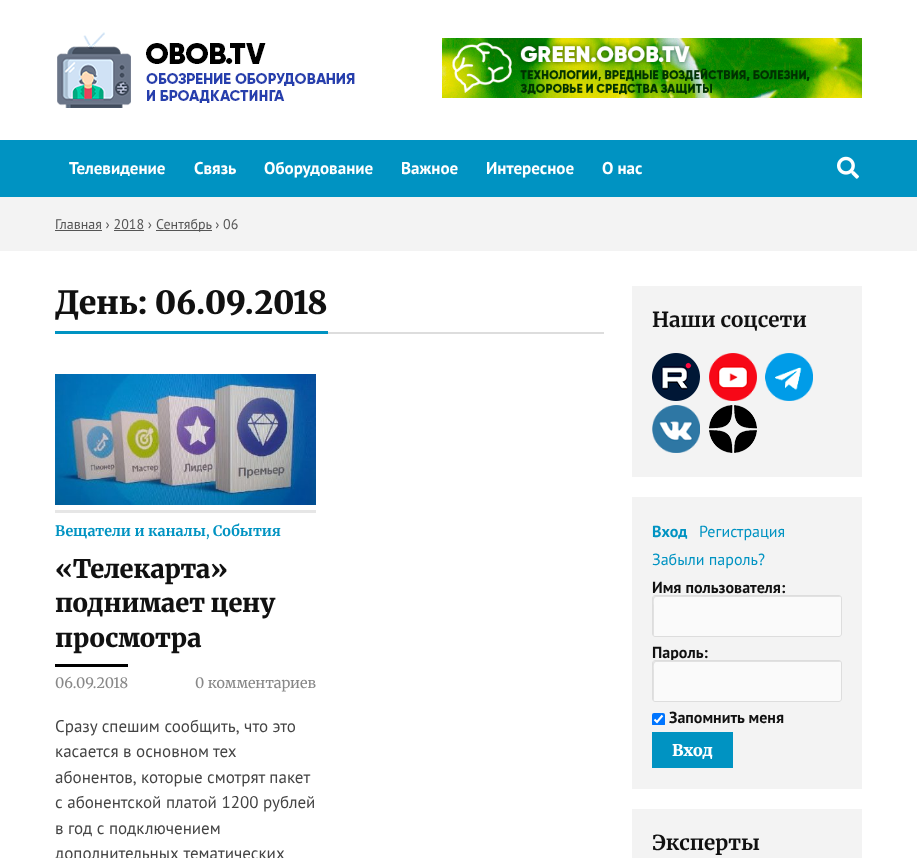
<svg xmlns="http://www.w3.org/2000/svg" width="917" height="858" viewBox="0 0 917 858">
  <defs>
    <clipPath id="clip1"><rect x="652" y="709" width="190" height="16"/></clipPath>
  </defs>
  <rect width="100%" height="100%" fill="rgb(255,255,255)"/>
  <image x="57" y="32" width="298" height="76" href="pic1.png"/>
  <image x="442" y="38" width="420" height="60" href="pic2.png"/>
  <rect x="0" y="140" width="917" height="57" fill="rgb(0,147,194)"/>
  <g font-family="PT Sans" font-size="17" font-weight="bold" fill="rgb(255,255,255)">
    <text x="69" y="174">Телевидение</text>
    <text x="194" y="174">Связь</text>
    <text x="264" y="174">Оборудование</text>
    <text x="401" y="174">Важное</text>
    <text x="486" y="174">Интересное</text>
    <text x="602" y="174">О нас</text>
  </g>
  <image x="837" y="156" width="22" height="23" href="pic3.png"/>
  <rect x="0" y="197" width="917" height="54" fill="rgb(243,243,243)"/>
  <text x="55" y="229" font-family="PT Sans" font-size="14" fill="rgb(85,85,85)">Главная › 2018 ›</text>
  <rect x="55" y="230" width="47" height="1" fill="rgb(85,85,85)"/>
  <rect x="156" y="230" width="56" height="1" fill="rgb(85,85,85)"/>
  <text x="156" y="229" font-family="PT Sans" font-size="14" fill="rgb(85,85,85)">Сентябрь › 06</text>
  <rect x="114" y="230" width="30" height="1" fill="rgb(85,85,85)"/>
  <rect x="328" y="332" width="276" height="2" fill="rgb(221,221,221)"/>
  <rect x="55" y="331" width="273" height="3" fill="rgb(0,147,194)"/>
  <text x="55" y="314" font-family="Merriweather" font-size="32" font-weight="900" fill="rgb(17,17,17)">День: 06.09.2018</text>
  <rect x="55" y="510" width="261" height="3" fill="rgb(230,230,230)"/>
  <image x="55" y="374" width="261" height="131" href="pic4.png"/>
  <text x="55" y="536" font-family="Merriweather" font-size="14.4" font-weight="bold" fill="rgb(0,147,194)">Вещатели и каналы</text>
  <text x="206" y="536" font-family="Merriweather" font-size="14.4" fill="rgb(0,147,194)">,</text>
  <text x="213" y="536" font-family="Merriweather" font-size="14.4" font-weight="bold" fill="rgb(0,147,194)">События</text>
  <g font-family="Merriweather" font-size="25.5" font-weight="900" letter-spacing="-0.25" fill="rgb(17,17,17)">
    <text>
      <tspan x="55" y="578">«Телекарта»</tspan>
      <tspan x="55" y="612">поднимает цену</tspan>
      <tspan x="55" y="647">просмотра</tspan>
    </text>
  </g>
  <text x="55" y="688" font-family="Merriweather" font-size="14.4" fill="rgb(136,136,136)">06.09.2018</text>
  <rect x="55" y="664" width="73" height="3" fill="rgb(0,0,0)"/>
  <text x="195" y="688" font-family="Merriweather" font-size="14.4" fill="rgb(136,136,136)">0 комментариев</text>
  <g font-family="PT Sans" font-size="17" fill="rgb(68,68,68)">
    <text>
      <tspan x="55" y="732">Сразу спешим сообщить, что это</tspan>
      <tspan x="55" y="757">касается в основном тех</tspan>
      <tspan x="55" y="783">абонентов, которые смотрят пакет</tspan>
      <tspan x="55" y="808">с абонентской платой 1200 рублей</tspan>
      <tspan x="55" y="834">в год с подключением</tspan>
      <tspan x="55" y="859" word-spacing="1">дополнительных тематических</tspan>
    </text>
  </g>
  <rect x="632" y="286" width="230" height="191" fill="rgb(243,243,243)"/>
  <text x="652" y="327" font-family="Merriweather" font-size="20.75" font-weight="bold" fill="rgb(17,17,17)">Наши соцсети</text>
  <image x="652" y="353" width="48" height="48" href="pic5.png"/>
  <image x="709" y="353" width="48" height="48" href="pic6.png"/>
  <image x="765" y="353" width="48" height="48" href="pic7.png"/>
  <image x="652" y="405" width="48" height="48" href="pic8.png"/>
  <image x="709" y="405" width="48" height="48" href="pic9.png"/>
  <rect x="632" y="497" width="230" height="292" fill="rgb(243,243,243)"/>
  <text x="652" y="537" font-family="PT Sans" font-size="16" font-weight="bold" fill="rgb(0,147,194)">Вход</text>
  <g font-family="PT Sans" font-size="16" fill="rgb(0,147,194)">
    <text x="699" y="537">Регистрация</text>
    <text x="652" y="565">Забыли пароль?</text>
  </g>
  <text x="652" y="593" font-family="PT Sans" font-size="16" font-weight="bold" fill="rgb(17,17,17)">Имя пользователя:</text>
  <rect x="652" y="595" width="190" height="42" rx="3" fill="rgb(250,250,250)"/>
  <path d="M656 597H841C841 597 840 596 839 596H655C654 596 653 597 653 598V634C653 635 654 636 654 636V605C654 605 653 597 656 597Z" fill="rgb(225,225,225)"/>
  <rect x="652.5" y="595.5" width="189" height="41" rx="2.5" fill="none" stroke="rgb(221,221,221)"/>
  <text x="652" y="658" font-family="PT Sans" font-size="16" font-weight="bold" fill="rgb(17,17,17)">Пароль:</text>
  <rect x="652" y="660" width="190" height="42" rx="3" fill="rgb(250,250,250)"/>
  <path d="M656 662H841C841 662 840 661 839 661H655C654 661 653 662 653 663V699C653 700 654 701 654 701V670C654 670 653 662 656 662Z" fill="rgb(225,225,225)"/>
  <rect x="652.5" y="660.5" width="189" height="41" rx="2.5" fill="none" stroke="rgb(221,221,221)"/>
  <g clip-path="url(#clip1)">
    <rect x="652" y="713" width="13" height="13" rx="2" fill="rgb(0,117,255)"/>
  </g>
  <path d="M654.5 719.5L657 722L662.5 715.5" fill="none" stroke="rgb(255,255,255)" stroke-width="2.1"/>
  <text x="669" y="723" font-family="PT Sans" font-size="16" font-weight="bold" fill="rgb(17,17,17)">Запомнить меня</text>
  <rect x="652" y="732" width="81" height="36" fill="rgb(0,147,194)"/>
  <text x="672" y="756" font-family="Merriweather" font-size="16" font-weight="900" fill="rgb(255,255,255)">Вход</text>
  <rect x="632" y="809" width="230" height="49" fill="rgb(243,243,243)"/>
  <text x="652" y="850" font-family="Merriweather" font-size="20.75" font-weight="bold" fill="rgb(17,17,17)">Эксперты</text>
</svg>
